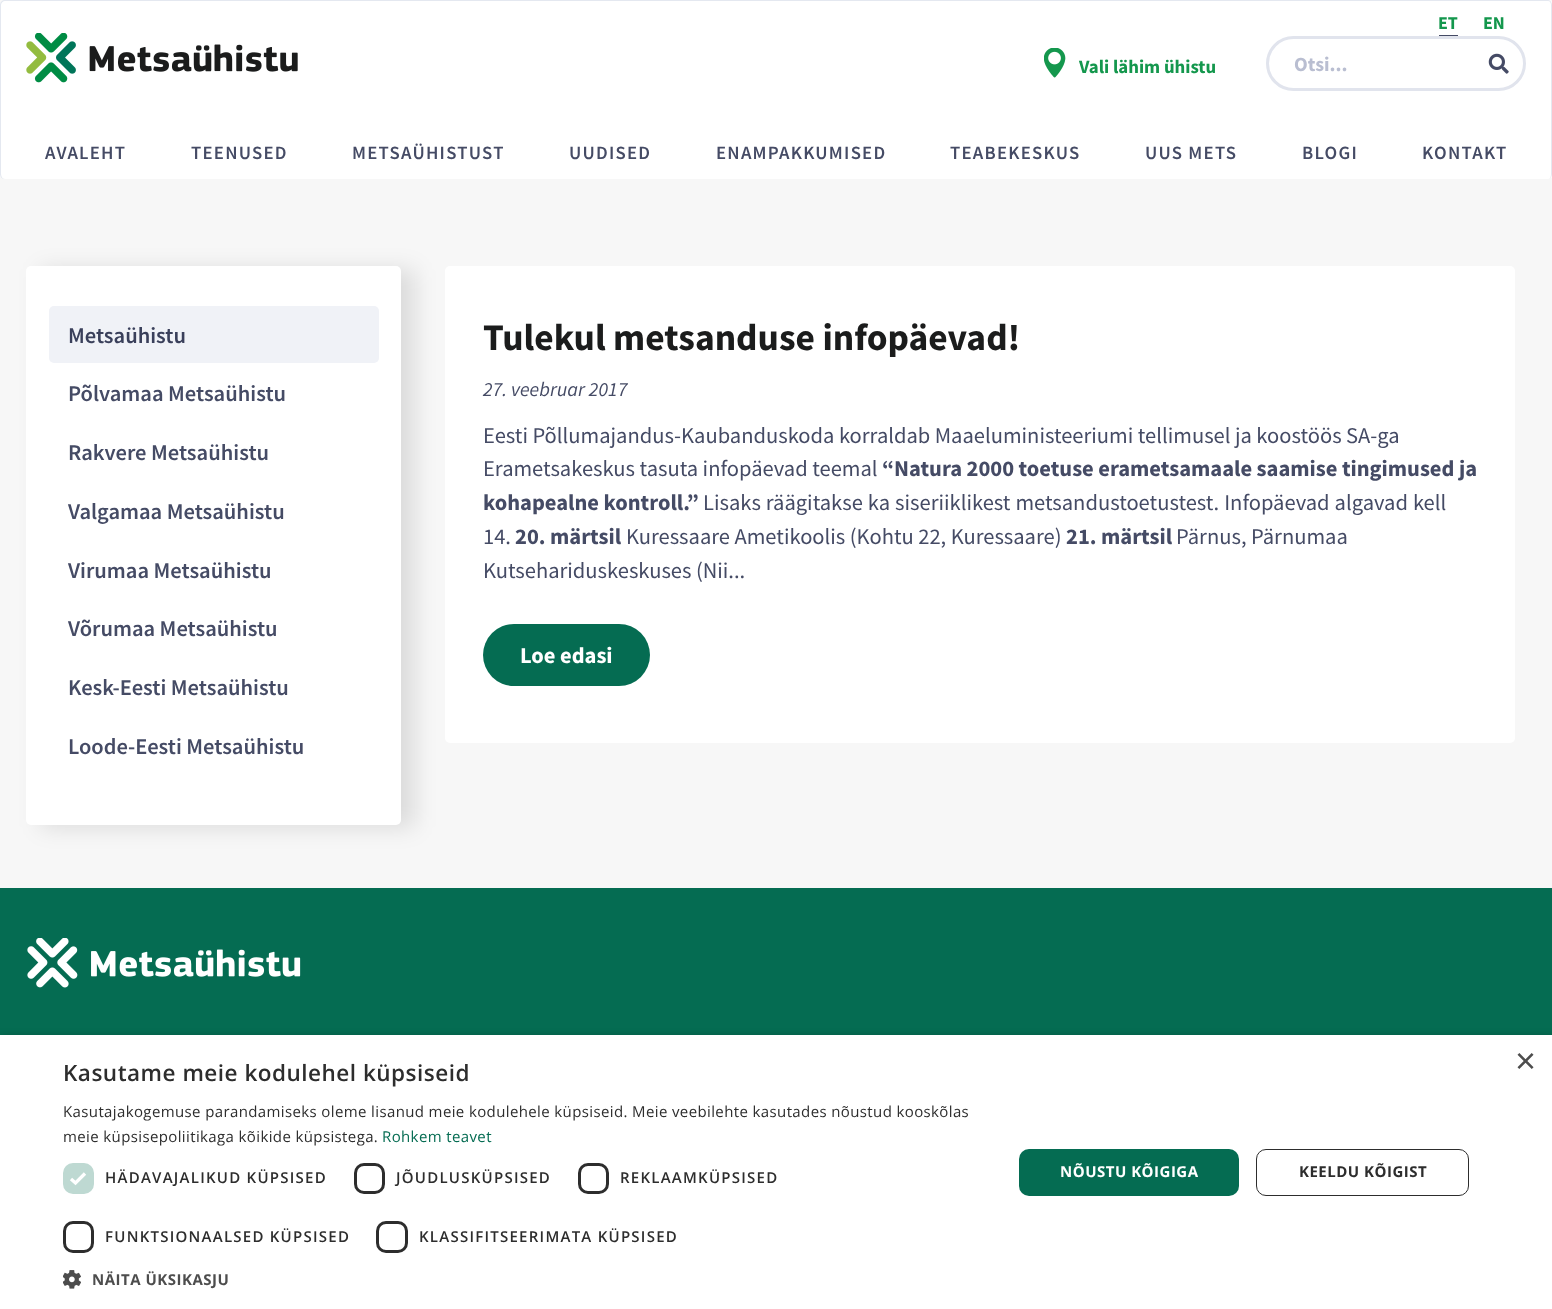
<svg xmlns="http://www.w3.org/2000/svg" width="1552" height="1309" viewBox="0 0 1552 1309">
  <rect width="100%" height="100%" fill="rgb(247,247,247)"/>
  <rect x="0" y="0" width="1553" height="179" rx="5" fill="rgb(255,255,255)"/>
  <path d="M5 0H1548C1550 0 1552 2 1552 5V174C1552 177 1550 179 1548 179H5C2 179 0 177 0 174V5C0 2 2 0 5 0ZM5 1H1548C1550 1 1551 3 1551 5V174C1551 177 1550 179 1548 179H5C3 179 1 177 1 174V5C1 3 3 1 5 1Z" fill="rgb(228,232,240)" fill-rule="evenodd"/>
  <image x="1044" y="48" width="22" height="30" href="pic1.png"/>
  <text x="1079" y="73" font-family="Source Sans Pro" font-size="18.75" font-weight="bold" fill="rgb(20,151,77)">Vali lähim ühistu</text>
  <text x="1438" y="29" font-family="Source Sans Pro" font-size="18" font-weight="bold" fill="rgb(20,151,77)">ET</text>
  <rect x="1439" y="35" width="19" height="1" fill="rgb(69,75,101)"/>
  <text x="1483" y="29" font-family="Source Sans Pro" font-size="18" font-weight="bold" fill="rgb(20,151,77)">EN</text>
  <rect x="1267.5" y="37.5" width="257" height="52" rx="26" fill="none" stroke="rgb(225,228,237)" stroke-width="3"/>
  <text x="1294" y="71" font-family="Source Sans Pro" font-size="20" font-weight="bold" fill="rgb(185,190,209)">Otsi...</text>
  <image x="1488" y="53" width="21" height="21" href="pic2.png"/>
  <g font-family="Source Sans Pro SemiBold" font-size="18.75" font-weight="600" letter-spacing="1.25" fill="rgb(69,75,101)">
    <text x="45" y="159">AVALEHT</text>
    <text x="191" y="159">TEENUSED</text>
    <text x="352" y="159">METSAÜHISTUST</text>
    <text x="569" y="159">UUDISED</text>
    <text x="716" y="159">ENAMPAKKUMISED</text>
    <text x="950" y="159">TEABEKESKUS</text>
    <text x="1145" y="159">UUS METS</text>
    <text x="1302" y="159">BLOGI</text>
    <text x="1422" y="159">KONTAKT</text>
  </g>
  <image x="26" y="33" width="272" height="50" href="pic3.png"/>
  <rect x="40" y="269" width="375" height="559" rx="5" fill="rgba(0,0,0,0.11)" filter="blur(11px)"/>
  <rect x="26" y="266" width="375" height="559" rx="5" fill="rgb(255,255,255)"/>
  <rect x="49" y="306" width="330" height="57" rx="5" fill="rgb(240,242,247)"/>
  <text x="68" y="343" font-family="Source Sans Pro SemiBold" font-size="22.5" font-weight="600" fill="rgb(58,64,91)">Metsaühistu</text>
  <g font-family="Source Sans Pro SemiBold" font-size="22.5" font-weight="600" fill="rgb(69,75,101)">
    <text x="68" y="401">Põlvamaa Metsaühistu</text>
    <text x="68" y="460">Rakvere Metsaühistu</text>
    <text x="68" y="519">Valgamaa Metsaühistu</text>
    <text x="68" y="578">Virumaa Metsaühistu</text>
    <text x="68" y="636">Võrumaa Metsaühistu</text>
    <text x="68" y="695">Kesk-Eesti Metsaühistu</text>
    <text x="68" y="754">Loode-Eesti Metsaühistu</text>
  </g>
  <rect x="445" y="266" width="1070" height="477" rx="5" fill="rgb(255,255,255)"/>
  <text x="483" y="350" font-family="Source Sans Pro" font-size="37.5" font-weight="bold" fill="rgb(27,28,28)">Tulekul metsanduse infopäevad!</text>
  <text x="483" y="396" font-family="Source Sans Pro" font-size="20" font-style="italic" fill="rgb(69,75,101)">27. veebruar 2017</text>
  <g font-family="Source Sans Pro" font-size="22.5" fill="rgb(69,75,101)">
    <text>
      <tspan x="483" y="443">Eesti Põllumajandus-Kaubanduskoda korraldab Maaeluministeeriumi tellimusel ja koostöös SA-ga</tspan>
      <tspan x="483" y="476">Erametsakeskus tasuta infopäevad teemal</tspan>
    </text>
  </g>
  <g font-family="Source Sans Pro" font-size="22.5" font-weight="bold" fill="rgb(69,75,101)">
    <text x="882" y="476">“Natura 2000 toetuse erametsamaale saamise tingimused ja</text>
    <text x="483" y="510">kohapealne kontroll.”</text>
  </g>
  <g font-family="Source Sans Pro" font-size="22.5" fill="rgb(69,75,101)">
    <text x="703" y="510" word-spacing="0.5">Lisaks räägitakse ka siseriiklikest metsandustoetustest. Infopäevad algavad kell</text>
    <text x="483" y="544">14.</text>
  </g>
  <text x="515" y="544" font-family="Source Sans Pro" font-size="22.5" font-weight="bold" fill="rgb(69,75,101)">20. märtsil</text>
  <text x="626" y="544" font-family="Source Sans Pro" font-size="22.5" fill="rgb(69,75,101)">Kuressaare Ametikoolis (Kohtu 22, Kuressaare)</text>
  <text x="1066" y="544" font-family="Source Sans Pro" font-size="22.5" font-weight="bold" fill="rgb(69,75,101)">21. märtsil</text>
  <g font-family="Source Sans Pro" font-size="22.5" fill="rgb(69,75,101)">
    <text x="1176" y="544">Pärnus, Pärnumaa</text>
    <text x="483" y="578">Kutsehariduskeskuses (Nii...</text>
  </g>
  <rect x="483" y="624" width="167" height="62" rx="31" fill="rgb(5,108,82)"/>
  <text x="520" y="663" font-family="Source Sans Pro" font-size="22.5" font-weight="bold" fill="rgb(255,255,255)">Loe edasi</text>
  <rect x="0" y="888" width="1552" height="147" fill="rgb(5,108,82)"/>
  <image x="27" y="938" width="274" height="50" href="pic4.png"/>
  <rect x="1" y="1038" width="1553" height="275" fill="rgba(0,0,0,0.35)" filter="blur(5px)"/>
  <rect x="0" y="1035" width="1552" height="274" fill="rgb(255,255,255)"/>
  <text x="1515" y="1073" font-family="Liberation Sans" font-size="36" fill="rgb(77,77,77)">×</text>
  <text x="63" y="1081" font-family="Open Sans" font-size="22.5" font-weight="600" letter-spacing="0.5" fill="rgb(45,45,45)">Kasutame meie kodulehel küpsiseid</text>
  <g font-family="Open Sans" font-size="15" letter-spacing="0.38" fill="rgb(45,45,45)">
    <text>
      <tspan x="63" y="1117">Kasutajakogemuse parandamiseks oleme lisanud meie kodulehele küpsiseid. Meie veebilehte kasutades nõustud kooskõlas</tspan>
      <tspan x="63" y="1142">meie küpsisepoliitikaga kõikide küpsistega.</tspan>
    </text>
  </g>
  <text x="382" y="1142" font-family="Open Sans" font-size="15" letter-spacing="0.38" fill="rgb(5,108,82)">Rohkem teavet</text>
  <rect x="63" y="1163" width="31" height="31" rx="10" fill="rgb(190,217,210)"/>
  <path d="M71 1179L75.5 1183L85 1173.5" fill="none" stroke="rgb(255,255,255)" stroke-width="3.3"/>
  <text x="105" y="1183" font-family="Open Sans" font-size="15" font-weight="600" letter-spacing="1.25" fill="rgb(45,45,45)">HÄDAVAJALIKUD KÜPSISED</text>
  <rect x="355.5" y="1164.5" width="28" height="28" rx="8.5" fill="none" stroke="rgb(45,45,45)" stroke-width="3"/>
  <text x="396" y="1183" font-family="Open Sans" font-size="15" font-weight="600" letter-spacing="1.25" fill="rgb(45,45,45)">JÕUDLUSKÜPSISED</text>
  <rect x="579.5" y="1164.5" width="28" height="28" rx="8.5" fill="none" stroke="rgb(45,45,45)" stroke-width="3"/>
  <text x="620" y="1183" font-family="Open Sans" font-size="15" font-weight="600" letter-spacing="1.25" fill="rgb(45,45,45)">REKLAAMKÜPSISED</text>
  <rect x="64.5" y="1222.5" width="28" height="29" rx="8.5" fill="none" stroke="rgb(45,45,45)" stroke-width="3"/>
  <text x="105" y="1242" font-family="Open Sans" font-size="15" font-weight="600" letter-spacing="1.25" fill="rgb(45,45,45)">FUNKTSIONAALSED KÜPSISED</text>
  <rect x="377.5" y="1222.5" width="29" height="29" rx="8.5" fill="none" stroke="rgb(45,45,45)" stroke-width="3"/>
  <text x="419" y="1242" font-family="Open Sans" font-size="15" font-weight="600" letter-spacing="1.25" fill="rgb(45,45,45)">KLASSIFITSEERIMATA KÜPSISED</text>
  <image x="63" y="1270" width="18" height="19" href="pic5.png"/>
  <text x="92" y="1285" font-family="Open Sans" font-size="15" font-weight="bold" letter-spacing="0.5" fill="rgb(77,77,77)">NÄITA ÜKSIKASJU</text>
  <rect x="1019" y="1149" width="220" height="47" rx="10" fill="rgb(5,108,82)"/>
  <text x="1060" y="1177" font-family="Open Sans" font-size="15" font-weight="bold" letter-spacing="0.5" fill="rgb(255,255,255)">NÕUSTU KÕIGIGA</text>
  <rect x="1256.5" y="1149.5" width="212" height="46" rx="9.5" fill="none" stroke="rgb(45,45,45)"/>
  <text x="1299" y="1177" font-family="Open Sans" font-size="15" font-weight="bold" letter-spacing="0.5" fill="rgb(45,45,45)">KEELDU KÕIGIST</text>
</svg>
